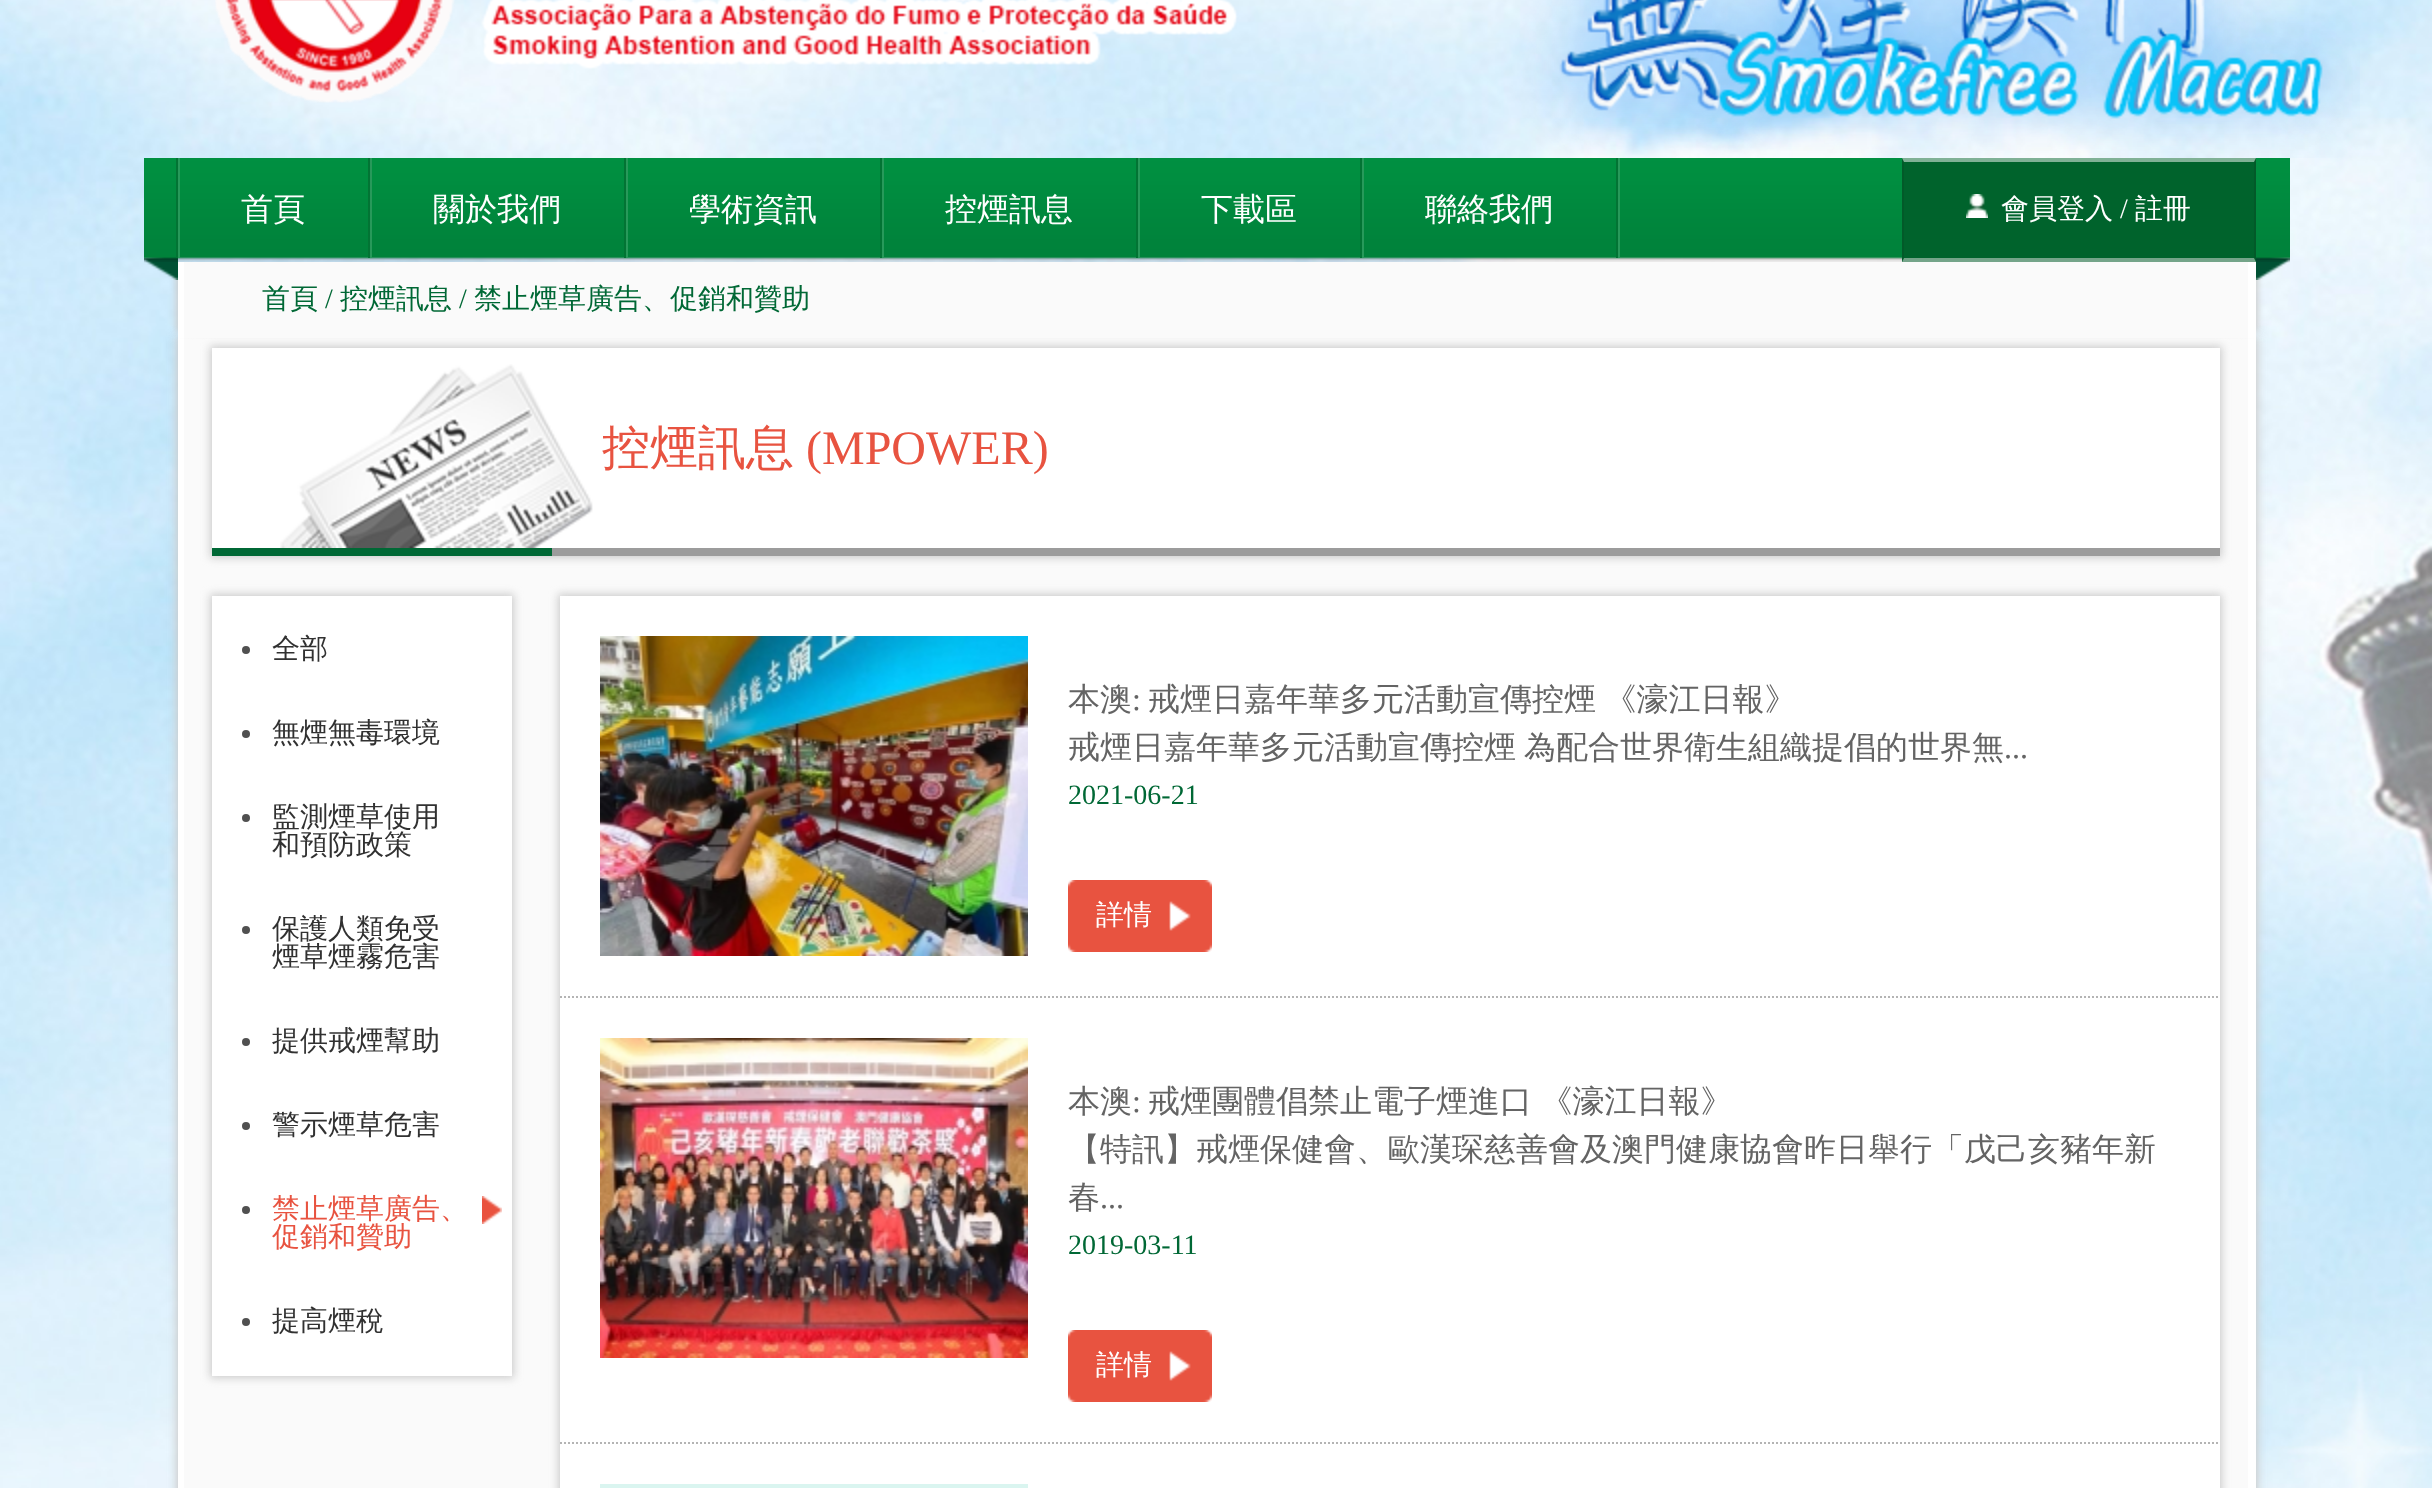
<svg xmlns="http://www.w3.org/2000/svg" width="2432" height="1488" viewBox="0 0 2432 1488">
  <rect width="100%" height="100%" fill="rgb(255,255,255)"/>
  <image x="0" y="0" width="2432" height="1488" href="pic1.png"/>
  <image x="215" y="0" width="2145" height="158" href="pic2.png"/>
  <rect x="176" y="336" width="2082" height="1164" fill="rgb(204,204,204)" filter="blur(4px)"/>
  <rect x="178" y="338" width="2078" height="1150" fill="rgb(255,255,255)"/>
  <rect x="184" y="338" width="2064" height="1150" fill="rgb(250,250,250)"/>
  <rect x="176" y="268" width="2066" height="64" fill="rgb(204,204,204)" filter="blur(3px)"/>
  <image x="144" y="257" width="34" height="23" href="pic5.png"/>
  <rect x="192" y="268" width="2066" height="64" fill="rgb(204,204,204)" filter="blur(3px)"/>
  <image x="2256" y="257" width="34" height="23" href="pic6.png"/>
  <image x="144" y="158" width="2146" height="104" href="pic3.png"/>
  <rect x="178" y="158" width="2" height="100" fill="rgb(39,153,90)"/>
  <rect x="176" y="158" width="2" height="100" fill="rgb(2,116,52)"/>
  <text x="241" y="220" font-family="WenQuanYi Zen Hei" font-size="32" font-weight="500" fill="rgb(255,255,255)">首頁</text>
  <rect x="368" y="158" width="2" height="100" fill="rgb(2,116,52)"/>
  <rect x="370" y="158" width="2" height="100" fill="rgb(39,153,90)"/>
  <text x="433" y="220" font-family="WenQuanYi Zen Hei" font-size="32" font-weight="500" fill="rgb(255,255,255)">關於我們</text>
  <rect x="624" y="158" width="2" height="100" fill="rgb(2,116,52)"/>
  <rect x="626" y="158" width="2" height="100" fill="rgb(39,153,90)"/>
  <text x="689" y="220" font-family="WenQuanYi Zen Hei" font-size="32" font-weight="500" fill="rgb(255,255,255)">學術資訊</text>
  <rect x="880" y="158" width="2" height="100" fill="rgb(2,116,52)"/>
  <rect x="882" y="158" width="2" height="100" fill="rgb(39,153,90)"/>
  <text x="945" y="220" font-family="WenQuanYi Zen Hei" font-size="32" font-weight="500" fill="rgb(255,255,255)">控煙訊息</text>
  <rect x="1136" y="158" width="2" height="100" fill="rgb(2,116,52)"/>
  <rect x="1138" y="158" width="2" height="100" fill="rgb(39,153,90)"/>
  <text x="1201" y="220" font-family="WenQuanYi Zen Hei" font-size="32" font-weight="500" fill="rgb(255,255,255)">下載區</text>
  <rect x="1360" y="158" width="2" height="100" fill="rgb(2,116,52)"/>
  <rect x="1362" y="158" width="2" height="100" fill="rgb(39,153,90)"/>
  <text x="1425" y="220" font-family="WenQuanYi Zen Hei" font-size="32" font-weight="500" fill="rgb(255,255,255)">聯絡我們</text>
  <rect x="1618" y="158" width="2" height="100" fill="rgb(39,153,90)"/>
  <rect x="1616" y="158" width="2" height="100" fill="rgb(2,116,52)"/>
  <rect x="1902" y="158" width="354" height="104" fill="rgb(0,99,44)"/>
  <path d="M1902 158H2256L2254 162H1904Z" fill="rgb(128,177,150)"/>
  <path d="M2256 158V262L2254 258V162Z" fill="rgba(20,20,20,0.1)"/>
  <path d="M2256 262H1902L1904 258H2254Z" fill="rgb(116,164,137)"/>
  <path d="M1902 262V158L1904 162V258Z" fill="rgba(20,20,20,0.1)"/>
  <image x="1966" y="194" width="22" height="24" href="pic4.png"/>
  <text x="2001" y="218" font-family="WenQuanYi Zen Hei" font-size="28" font-weight="500" fill="rgb(255,255,255)">會員登入</text>
  <text x="2120" y="218" font-family="Liberation Serif" font-size="28" fill="rgb(255,255,255)">/</text>
  <text x="2135" y="218" font-family="WenQuanYi Zen Hei" font-size="28" font-weight="500" fill="rgb(255,255,255)">註冊</text>
  <rect x="210" y="346" width="2012" height="212" fill="rgb(204,204,204)" filter="blur(4px)"/>
  <rect x="178" y="262" width="2078" height="76" fill="rgb(255,255,255)"/>
  <rect x="184" y="262" width="2064" height="76" fill="rgb(250,250,250)"/>
  <text x="262" y="308" font-family="WenQuanYi Zen Hei" font-size="28" font-weight="500" fill="rgb(0,104,53)">首頁</text>
  <text x="325" y="308" font-family="Liberation Serif" font-size="28" fill="rgb(0,104,53)">/</text>
  <text x="340" y="308" font-family="WenQuanYi Zen Hei" font-size="28" font-weight="500" fill="rgb(0,104,53)">控煙訊息</text>
  <text x="459" y="308" font-family="Liberation Serif" font-size="28" fill="rgb(0,104,53)">/</text>
  <text x="474" y="308" font-family="WenQuanYi Zen Hei" font-size="28" font-weight="500" fill="rgb(0,104,53)">禁止煙草廣告、促銷和贊助</text>
  <rect x="212" y="348" width="2008" height="200" fill="rgb(255,255,255)"/>
  <image x="280" y="364" width="313" height="184" href="pic7.png"/>
  <text x="602" y="464" font-family="WenQuanYi Zen Hei" font-size="48" font-weight="500" fill="rgb(232,83,64)">控煙訊息</text>
  <text x="806" y="464" font-family="Liberation Serif" font-size="48" fill="rgb(232,83,64)">(MPOWER)</text>
  <rect x="552" y="548" width="1668" height="8" fill="rgb(156,156,156)"/>
  <rect x="212" y="548" width="340" height="8" fill="rgb(0,104,53)"/>
  <rect x="210" y="594" width="304" height="784" fill="rgb(204,204,204)" filter="blur(4px)"/>
  <rect x="212" y="596" width="300" height="780" fill="rgb(255,255,255)"/>
  <circle cx="246" cy="650" r="4" fill="rgb(80,80,80)"/>
  <text x="272" y="658" font-family="WenQuanYi Zen Hei" font-size="28" font-weight="500" fill="rgb(49,49,49)">全部</text>
  <circle cx="246" cy="734" r="4" fill="rgb(80,80,80)"/>
  <text x="272" y="742" font-family="WenQuanYi Zen Hei" font-size="28" font-weight="500" fill="rgb(49,49,49)">無煙無毒環境</text>
  <circle cx="246" cy="818" r="4" fill="rgb(80,80,80)"/>
  <g font-family="WenQuanYi Zen Hei" font-size="28" font-weight="500" fill="rgb(49,49,49)">
    <text>
      <tspan x="272" y="826">監測煙草使用</tspan>
      <tspan x="272" y="854">和預防政策</tspan>
    </text>
  </g>
  <circle cx="246" cy="930" r="4" fill="rgb(80,80,80)"/>
  <g font-family="WenQuanYi Zen Hei" font-size="28" font-weight="500" fill="rgb(49,49,49)">
    <text>
      <tspan x="272" y="938">保護人類免受</tspan>
      <tspan x="272" y="966">煙草煙霧危害</tspan>
    </text>
  </g>
  <circle cx="246" cy="1042" r="4" fill="rgb(80,80,80)"/>
  <text x="272" y="1050" font-family="WenQuanYi Zen Hei" font-size="28" font-weight="500" fill="rgb(49,49,49)">提供戒煙幫助</text>
  <circle cx="246" cy="1126" r="4" fill="rgb(80,80,80)"/>
  <text x="272" y="1134" font-family="WenQuanYi Zen Hei" font-size="28" font-weight="500" fill="rgb(49,49,49)">警示煙草危害</text>
  <circle cx="246" cy="1210" r="4" fill="rgb(80,80,80)"/>
  <g font-family="WenQuanYi Zen Hei" font-size="28" font-weight="500" fill="rgb(232,83,64)">
    <text>
      <tspan x="272" y="1218">禁止煙草廣告、</tspan>
      <tspan x="272" y="1246">促銷和贊助</tspan>
    </text>
  </g>
  <image x="482" y="1196" width="20" height="28" href="pic8.png"/>
  <circle cx="246" cy="1322" r="4" fill="rgb(80,80,80)"/>
  <text x="272" y="1330" font-family="WenQuanYi Zen Hei" font-size="28" font-weight="500" fill="rgb(49,49,49)">提高煙稅</text>
  <rect x="558" y="594" width="1664" height="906" fill="rgb(204,204,204)" filter="blur(4px)"/>
  <rect x="560" y="596" width="1660" height="892" fill="rgb(255,255,255)"/>
  <path d="M560 997H2220" fill="none" stroke="rgb(180,180,180)" stroke-width="2" stroke-dasharray="2 2"/>
  <image x="600" y="636" width="428" height="320" href="pic9.png"/>
  <text x="1068" y="710" font-family="WenQuanYi Zen Hei" font-size="32" font-weight="500" fill="rgb(100,100,100)">本澳</text>
  <text x="1132" y="710" font-family="Liberation Serif" font-size="32" fill="rgb(100,100,100)">:</text>
  <g font-family="WenQuanYi Zen Hei" font-size="32" font-weight="500" fill="rgb(100,100,100)">
    <text x="1148" y="710" word-spacing="-1">戒煙日嘉年華多元活動宣傳控煙 《濠江日報》</text>
    <text x="1068" y="758">戒煙日嘉年華多元活動宣傳控煙</text>
    <text x="1524" y="758">為配合世界衛生組織提倡的世界無</text>
  </g>
  <text x="2004" y="758" font-family="Liberation Serif" font-size="32" fill="rgb(100,100,100)">...</text>
  <text x="1068" y="804" font-family="Liberation Serif" font-size="28" fill="rgb(0,104,53)">2021-06-21</text>
  <image x="1068" y="880" width="144" height="72" href="pic10.png"/>
  <text x="1096" y="924" font-family="WenQuanYi Zen Hei" font-size="28" font-weight="500" fill="rgb(255,255,255)">詳情</text>
  <path d="M560 1443H2220" fill="none" stroke="rgb(180,180,180)" stroke-width="2" stroke-dasharray="2 2"/>
  <image x="600" y="1038" width="428" height="320" href="pic11.png"/>
  <text x="1068" y="1112" font-family="WenQuanYi Zen Hei" font-size="32" font-weight="500" fill="rgb(100,100,100)">本澳</text>
  <text x="1132" y="1112" font-family="Liberation Serif" font-size="32" fill="rgb(100,100,100)">:</text>
  <g font-family="WenQuanYi Zen Hei" font-size="32" font-weight="500" fill="rgb(100,100,100)">
    <text x="1148" y="1112" word-spacing="-1">戒煙團體倡禁止電子煙進口 《濠江日報》</text>
    <text>
      <tspan x="1068" y="1160">【特訊】戒煙保健會、歐漢琛慈善會及澳門健康協會昨日舉行「戊己亥豬年新</tspan>
      <tspan x="1068" y="1208">春</tspan>
    </text>
  </g>
  <text x="1100" y="1208" font-family="Liberation Serif" font-size="32" fill="rgb(100,100,100)">...</text>
  <text x="1068" y="1254" font-family="Liberation Serif" font-size="28" fill="rgb(0,104,53)">2019-03-11</text>
  <image x="1068" y="1330" width="144" height="72" href="pic10.png"/>
  <text x="1096" y="1374" font-family="WenQuanYi Zen Hei" font-size="28" font-weight="500" fill="rgb(255,255,255)">詳情</text>
  <rect x="600" y="1484" width="428" height="4" fill="rgb(218,245,240)"/>
</svg>
